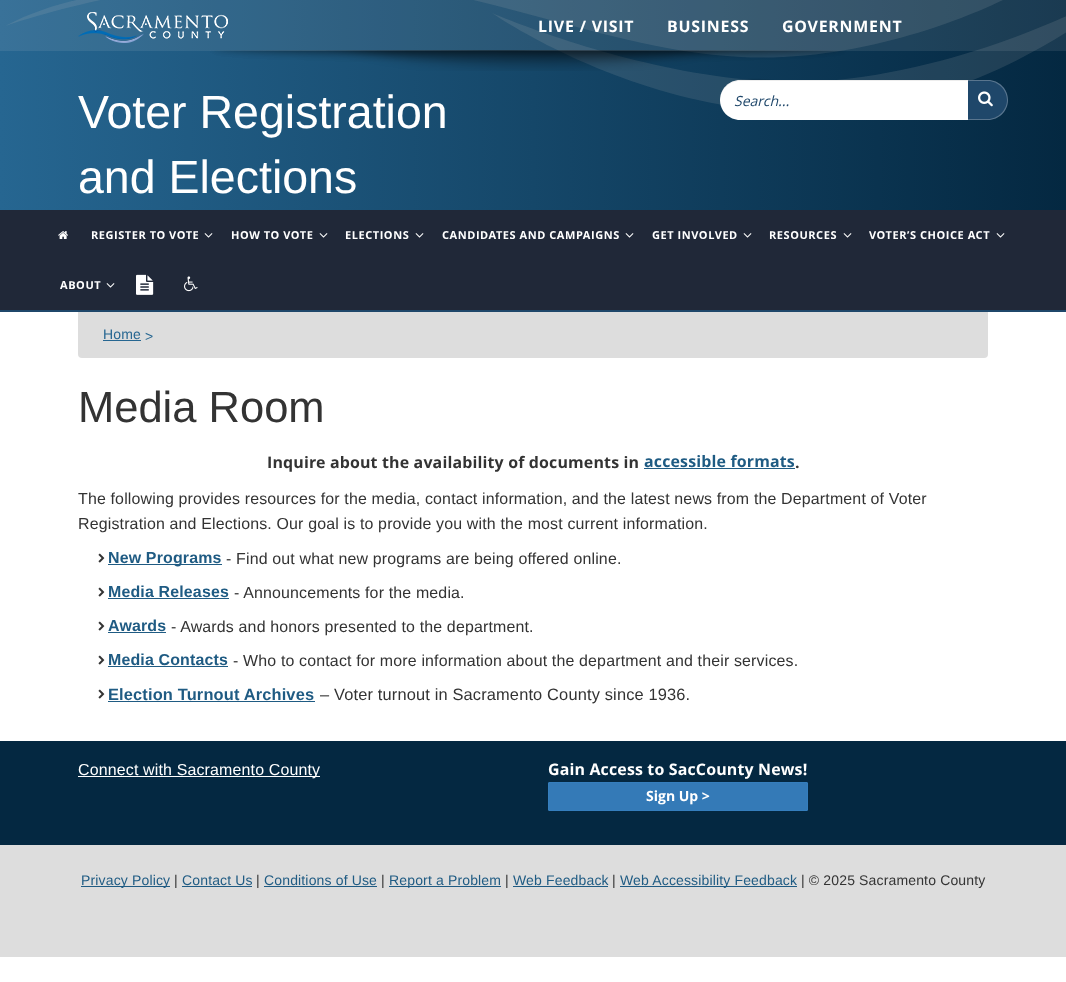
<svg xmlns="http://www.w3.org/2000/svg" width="1066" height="982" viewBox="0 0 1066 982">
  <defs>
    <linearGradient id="g1" gradientUnits="userSpaceOnUse" x1="0" y1="104" x2="1066" y2="104"><stop offset="0" stop-color="rgb(38,102,145)"/><stop offset="1" stop-color="rgb(4,40,65)"/></linearGradient>
  </defs>
  <rect width="100%" height="100%" fill="rgb(255,255,255)"/>
  <rect x="0" y="0" width="1066" height="210" fill="url(#g1)"/>
  <path d="M465-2C562 21 652 53 741 57C881 64 1007-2 1007-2Z" fill="rgba(183,183,183,0.15)"/>
  <path d="M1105-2C1057 22 946 72 823 81C670 91 492 13 492 13C492 13 647 121 829 112C967 105 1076 29 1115-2Z" fill="rgba(183,183,183,0.15)"/>
  <image x="210" y="50" width="636" height="21" href="pic2.png"/>
  <path d="M66-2H107H91C78-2 37 9 5 26C5 26 48 11 110-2Z" fill="rgba(183,183,183,0.15)"/>
  <rect x="0" y="0" width="1066" height="51" fill="rgba(221,221,221,0.1)"/>
  <image x="78" y="12" width="150" height="31" href="pic1.png"/>
  <g font-family="Open Sans" font-size="15.95" font-weight="bold" letter-spacing="0.75" fill="rgb(255,255,255)">
    <text x="538" y="32">LIVE / VISIT</text>
    <text x="667" y="32">BUSINESS</text>
    <text x="782" y="32">GOVERNMENT</text>
  </g>
  <g font-family="Liberation Sans" font-size="46.5" fill="rgb(255,255,255)">
    <text>
      <tspan x="78" y="128">Voter Registration</tspan>
      <tspan x="78" y="193">and Elections</tspan>
    </text>
  </g>
  <path d="M740 80H968V120H740C729 120 720 111 720 100C720 89 729 80 740 80Z" fill="rgb(255,255,255)"/>
  <path d="M740 81H968V80H778C764 80 719 71 720 101C720 90 729 81 740 81Z" fill="rgba(0,0,0,0.07)"/>
  <text x="734" y="106" font-family="Open Sans" font-size="14" font-style="italic" fill="rgb(31,71,106)">Search...</text>
  <path d="M968 80H988C999 80 1008 89 1008 100C1008 111 999 120 988 120H968Z" fill="rgb(31,71,106)"/>
  <path d="M968 80H988C999 80 1008 89 1008 100C1008 111 999 120 988 120H968ZM968 81H988C998 81 1007 90 1007 100C1007 110 998 119 988 119H968Z" fill="rgba(225,225,225,0.3)" fill-rule="evenodd"/>
  <image x="978" y="91" width="15" height="16" href="pic3.png"/>
  <rect x="78" y="302" width="910" height="56" rx="4" fill="rgb(221,221,221)"/>
  <rect x="0" y="210" width="1066" height="100" fill="rgb(32,40,56)"/>
  <rect x="0" y="310" width="1066" height="2" fill="rgb(31,71,106)"/>
  <image x="58" y="231" width="10" height="8" href="pic4.png"/>
  <text x="91" y="239" font-family="Open Sans" font-size="11" font-weight="bold" letter-spacing="0.55" fill="rgb(255,255,255)">REGISTER TO VOTE</text>
  <image x="204" y="233" width="9" height="5" href="pic5.png"/>
  <text x="231" y="239" font-family="Open Sans" font-size="11" font-weight="bold" letter-spacing="0.55" fill="rgb(255,255,255)">HOW TO VOTE</text>
  <image x="319" y="233" width="9" height="5" href="pic5.png"/>
  <text x="345" y="239" font-family="Open Sans" font-size="11" font-weight="bold" letter-spacing="0.55" fill="rgb(255,255,255)">ELECTIONS</text>
  <image x="415" y="233" width="9" height="5" href="pic5.png"/>
  <text x="442" y="239" font-family="Open Sans" font-size="11" font-weight="bold" letter-spacing="0.55" fill="rgb(255,255,255)">CANDIDATES AND CAMPAIGNS</text>
  <image x="625" y="233" width="9" height="5" href="pic5.png"/>
  <text x="652" y="239" font-family="Open Sans" font-size="11" font-weight="bold" letter-spacing="0.55" fill="rgb(255,255,255)">GET INVOLVED</text>
  <image x="743" y="233" width="9" height="5" href="pic5.png"/>
  <text x="769" y="239" font-family="Open Sans" font-size="11" font-weight="bold" letter-spacing="0.55" fill="rgb(255,255,255)">RESOURCES</text>
  <image x="843" y="233" width="9" height="5" href="pic5.png"/>
  <text x="869" y="239" font-family="Open Sans" font-size="11" font-weight="bold" letter-spacing="0.55" fill="rgb(255,255,255)">VOTER’S CHOICE ACT</text>
  <image x="996" y="233" width="9" height="5" href="pic5.png"/>
  <text x="60" y="289" font-family="Open Sans" font-size="11" font-weight="bold" letter-spacing="0.55" fill="rgb(255,255,255)">ABOUT</text>
  <image x="106" y="283" width="9" height="5" href="pic5.png"/>
  <image x="136" y="274" width="18" height="21" href="pic6.png"/>
  <image x="184" y="276" width="14" height="16" href="pic7.png"/>
  <text x="103" y="339" font-family="Liberation Sans" font-size="14" letter-spacing="0.15" fill="rgb(38,102,145)">Home</text>
  <rect x="103" y="340" width="38" height="1" fill="rgb(38,102,145)"/>
  <text x="145" y="341" font-family="Liberation Sans" font-size="14" letter-spacing="0.15" fill="rgb(38,102,145)">&gt;</text>
  <text x="78" y="422" font-family="Liberation Sans" font-size="43.5" fill="rgb(51,51,51)">Media Room</text>
  <text x="267" y="468" font-family="Open Sans" font-size="15.95" font-weight="bold" letter-spacing="0.16" fill="rgb(51,51,51)">Inquire about the availability of documents in</text>
  <text x="644" y="467" font-family="Open Sans" font-size="15.95" font-weight="bold" letter-spacing="0.16" fill="rgb(31,91,131)">accessible formats</text>
  <text x="795" y="468" font-family="Open Sans" font-size="15.95" font-weight="bold" letter-spacing="0.16" fill="rgb(51,51,51)">.</text>
  <rect x="644" y="468" width="151" height="1" fill="rgb(31,91,131)"/>
  <g font-family="Liberation Sans" font-size="15.95" letter-spacing="0.16" fill="rgb(51,51,51)">
    <text>
      <tspan x="78" y="504">The following provides resources for the media, contact information, and the latest news from the Department of Voter</tspan>
      <tspan x="78" y="529">Registration and Elections. Our goal is to provide you with the most current information.</tspan>
    </text>
  </g>
  <image x="98" y="553" width="7" height="10" href="pic8.png"/>
  <rect x="108" y="564" width="114" height="1" fill="rgb(31,91,131)"/>
  <text x="108" y="563" font-family="Liberation Sans" font-size="15.95" font-weight="bold" letter-spacing="0.16" fill="rgb(31,91,131)">New Programs</text>
  <text x="226" y="564" font-family="Liberation Sans" font-size="15.95" letter-spacing="0.16" fill="rgb(51,51,51)">- Find out what new programs are being offered online.</text>
  <image x="98" y="587" width="7" height="10" href="pic8.png"/>
  <text x="108" y="597" font-family="Liberation Sans" font-size="15.95" font-weight="bold" letter-spacing="0.16" fill="rgb(31,91,131)">Media Releases</text>
  <rect x="108" y="598" width="121" height="1" fill="rgb(31,91,131)"/>
  <text x="234" y="598" font-family="Liberation Sans" font-size="15.95" letter-spacing="0.16" fill="rgb(51,51,51)">- Announcements for the media.</text>
  <image x="98" y="621" width="7" height="10" href="pic8.png"/>
  <text x="108" y="631" font-family="Liberation Sans" font-size="15.95" font-weight="bold" letter-spacing="0.16" fill="rgb(31,91,131)">Awards</text>
  <rect x="108" y="632" width="58" height="1" fill="rgb(31,91,131)"/>
  <text x="171" y="632" font-family="Liberation Sans" font-size="15.95" letter-spacing="0.16" fill="rgb(51,51,51)">- Awards and honors presented to the department.</text>
  <image x="98" y="655" width="7" height="10" href="pic8.png"/>
  <text x="108" y="665" font-family="Liberation Sans" font-size="15.95" font-weight="bold" letter-spacing="0.16" fill="rgb(31,91,131)">Media Contacts</text>
  <rect x="108" y="666" width="120" height="1" fill="rgb(31,91,131)"/>
  <text x="233" y="666" font-family="Liberation Sans" font-size="15.95" letter-spacing="0.16" fill="rgb(51,51,51)">- Who to contact for more information about the department and their services.</text>
  <image x="98" y="689" width="7" height="10" href="pic8.png"/>
  <text x="108" y="700" font-family="Liberation Sans" font-size="16.4" font-weight="bold" letter-spacing="0.16" fill="rgb(31,91,131)">Election Turnout Archives</text>
  <rect x="108" y="701" width="207" height="1" fill="rgb(31,91,131)"/>
  <text x="320" y="700" font-family="Liberation Sans" font-size="16.4" letter-spacing="0.16" fill="rgb(51,51,51)">– Voter turnout in Sacramento County since 1936.</text>
  <rect x="0" y="741" width="1066" height="104" fill="rgb(4,40,65)"/>
  <rect x="78" y="776" width="242" height="1" fill="rgb(255,255,255)"/>
  <text x="78" y="775" font-family="Liberation Sans" font-size="15.95" letter-spacing="0.16" fill="rgb(255,255,255)">Connect with Sacramento County</text>
  <text x="548" y="775" font-family="'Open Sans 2'" font-size="15.95" font-weight="bold" letter-spacing="0.16" fill="rgb(255,255,255)">Gain Access to SacCounty News!</text>
  <rect x="548.5" y="782.5" width="259" height="28" rx="0.5" fill="rgb(52,122,183)" stroke="rgb(53,126,189)"/>
  <text x="646" y="801" font-family="'Open Sans 2'" font-size="14" font-weight="bold" fill="rgb(255,255,255)">Sign Up &gt;</text>
  <rect x="0" y="845" width="1066" height="112" fill="rgb(221,221,221)"/>
  <rect x="81" y="886" width="89" height="1" fill="rgb(31,91,131)"/>
  <text x="81" y="885" font-family="Liberation Sans" font-size="14" letter-spacing="0.15" fill="rgb(31,91,131)">Privacy Policy</text>
  <text x="174" y="885" font-family="Liberation Sans" font-size="14" letter-spacing="0.15" fill="rgb(51,51,51)">|</text>
  <text x="182" y="885" font-family="Liberation Sans" font-size="14" letter-spacing="0.15" fill="rgb(31,91,131)">Contact Us</text>
  <rect x="182" y="886" width="70" height="1" fill="rgb(31,91,131)"/>
  <text x="256" y="885" font-family="Liberation Sans" font-size="14" letter-spacing="0.15" fill="rgb(51,51,51)">|</text>
  <text x="264" y="885" font-family="Liberation Sans" font-size="14" letter-spacing="0.15" fill="rgb(31,91,131)">Conditions of Use</text>
  <rect x="264" y="886" width="113" height="1" fill="rgb(31,91,131)"/>
  <text x="381" y="885" font-family="Liberation Sans" font-size="14" letter-spacing="0.15" fill="rgb(51,51,51)">|</text>
  <rect x="389" y="886" width="112" height="1" fill="rgb(31,91,131)"/>
  <text x="389" y="885" font-family="Liberation Sans" font-size="14" letter-spacing="0.15" fill="rgb(31,91,131)">Report a Problem</text>
  <text x="505" y="885" font-family="Liberation Sans" font-size="14" letter-spacing="0.15" fill="rgb(51,51,51)">|</text>
  <text x="513" y="885" font-family="Liberation Sans" font-size="14" letter-spacing="0.15" fill="rgb(31,91,131)">Web Feedback</text>
  <rect x="513" y="886" width="95" height="1" fill="rgb(31,91,131)"/>
  <text x="612" y="885" font-family="Liberation Sans" font-size="14" letter-spacing="0.15" fill="rgb(51,51,51)">|</text>
  <rect x="620" y="886" width="177" height="1" fill="rgb(31,91,131)"/>
  <text x="620" y="885" font-family="Liberation Sans" font-size="14" letter-spacing="0.15" fill="rgb(31,91,131)">Web Accessibility Feedback</text>
  <text x="801" y="885" font-family="Liberation Sans" font-size="14" letter-spacing="0.15" fill="rgb(51,51,51)">| © 2025 Sacramento County</text>
</svg>
